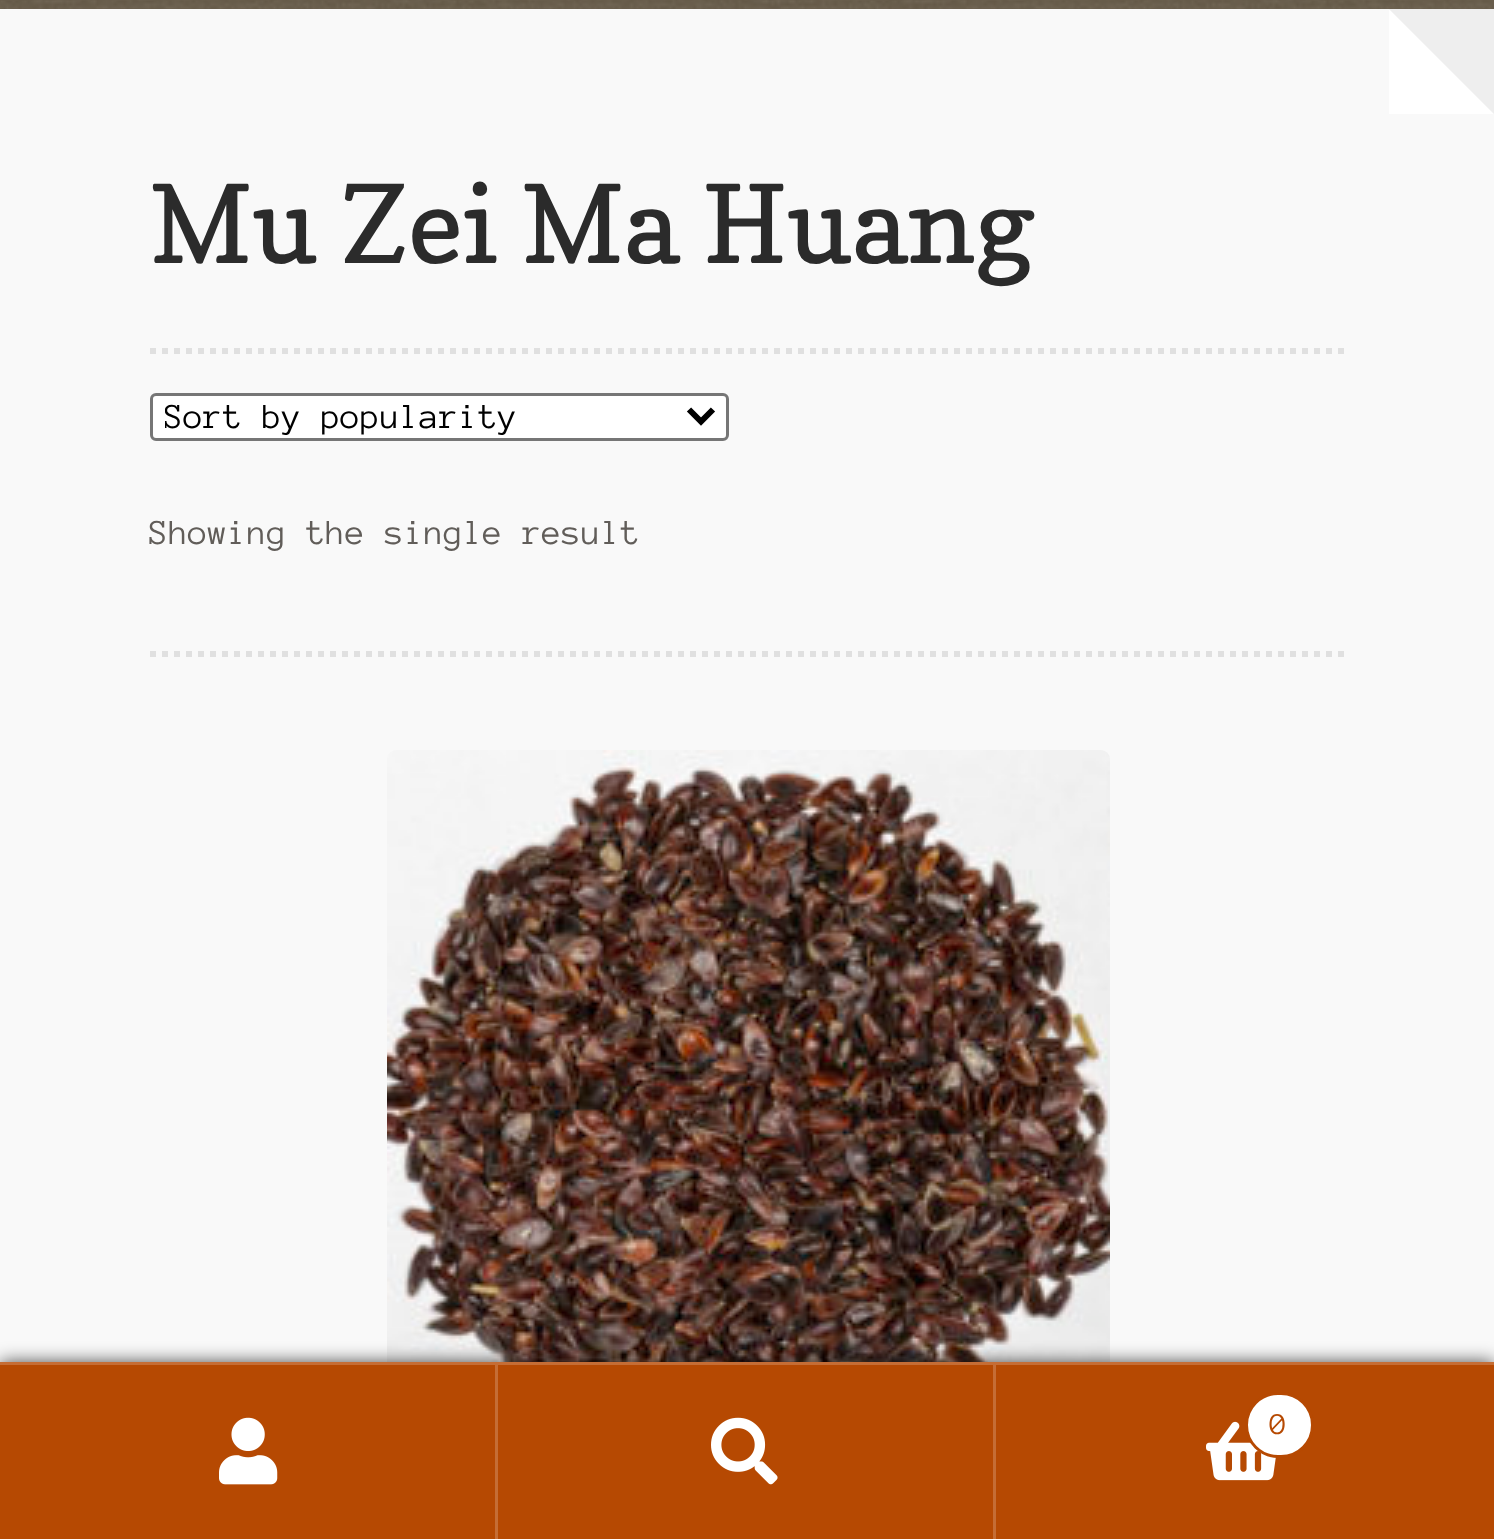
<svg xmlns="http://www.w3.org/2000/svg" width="1494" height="1539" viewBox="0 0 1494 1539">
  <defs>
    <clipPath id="clip1"><rect x="165" y="396" width="513" height="42"/></clipPath>
  </defs>
  <rect width="100%" height="100%" fill="rgb(255,255,255)"/>
  <image x="0" y="0" width="1494" height="9" href="pic1.png"/>
  <rect x="0" y="9" width="1494" height="1353" fill="rgb(249,249,249)"/>
  <path d="M1494 114H1389V9Z" fill="rgb(255,255,255)"/>
  <path d="M1494 9V114L1389 9Z" fill="rgb(238,238,238)"/>
  <text x="149" y="263" font-family="Copse" font-size="107.75" fill="rgb(43,43,43)">Mu Zei Ma Huang</text>
  <path d="M150 351H1344" fill="none" stroke="rgb(224,224,224)" stroke-width="6" stroke-dasharray="6 6"/>
  <path d="M150 654H1344" fill="none" stroke="rgb(224,224,224)" stroke-width="6" stroke-dasharray="6 6"/>
  <rect x="151.5" y="394.5" width="576" height="45" rx="4.5" fill="rgb(255,255,255)" stroke="rgb(118,118,118)" stroke-width="3"/>
  <path d="M689 409.5L701 421.5L713 409.5" fill="none" stroke="rgb(0,0,0)" stroke-width="6"/>
  <g clip-path="url(#clip1)">
    <text x="164" y="428" font-family="Anonymous Pro" font-size="36" fill="rgb(0,0,0)">Sort by popularity</text>
  </g>
  <text x="149" y="544" font-family="Anonymous Pro" font-size="36" fill="rgb(97,93,89)">Showing the single result</text>
  <image x="387" y="750" width="723" height="612" href="pic2.png"/>
  <rect x="0" y="1362" width="1494" height="177" fill="rgba(0,0,0,0.7)" filter="blur(9px)"/>
  <rect x="0" y="1362" width="1494" height="3" fill="rgb(197,109,53)"/>
  <rect x="0" y="1365" width="495" height="174" fill="rgb(182,73,2)"/>
  <rect x="495" y="1365" width="3" height="174" fill="rgb(197,109,53)"/>
  <image x="219" y="1417" width="59" height="68" href="pic3.png"/>
  <rect x="498" y="1365" width="495" height="174" fill="rgb(182,73,2)"/>
  <rect x="993" y="1365" width="3" height="174" fill="rgb(197,109,53)"/>
  <image x="711" y="1417" width="67" height="68" href="pic4.png"/>
  <rect x="996" y="1365" width="498" height="174" fill="rgb(182,73,2)"/>
  <image x="1206" y="1421" width="70" height="60" href="pic5.png"/>
  <rect x="1246.5" y="1393.5" width="66" height="63" rx="31.5" fill="rgb(255,255,255)" stroke="rgb(182,73,2)" stroke-width="3"/>
  <text x="1270" y="1434" font-family="Anonymous Pro" font-size="31" fill="rgb(182,73,2)">0</text>
</svg>
